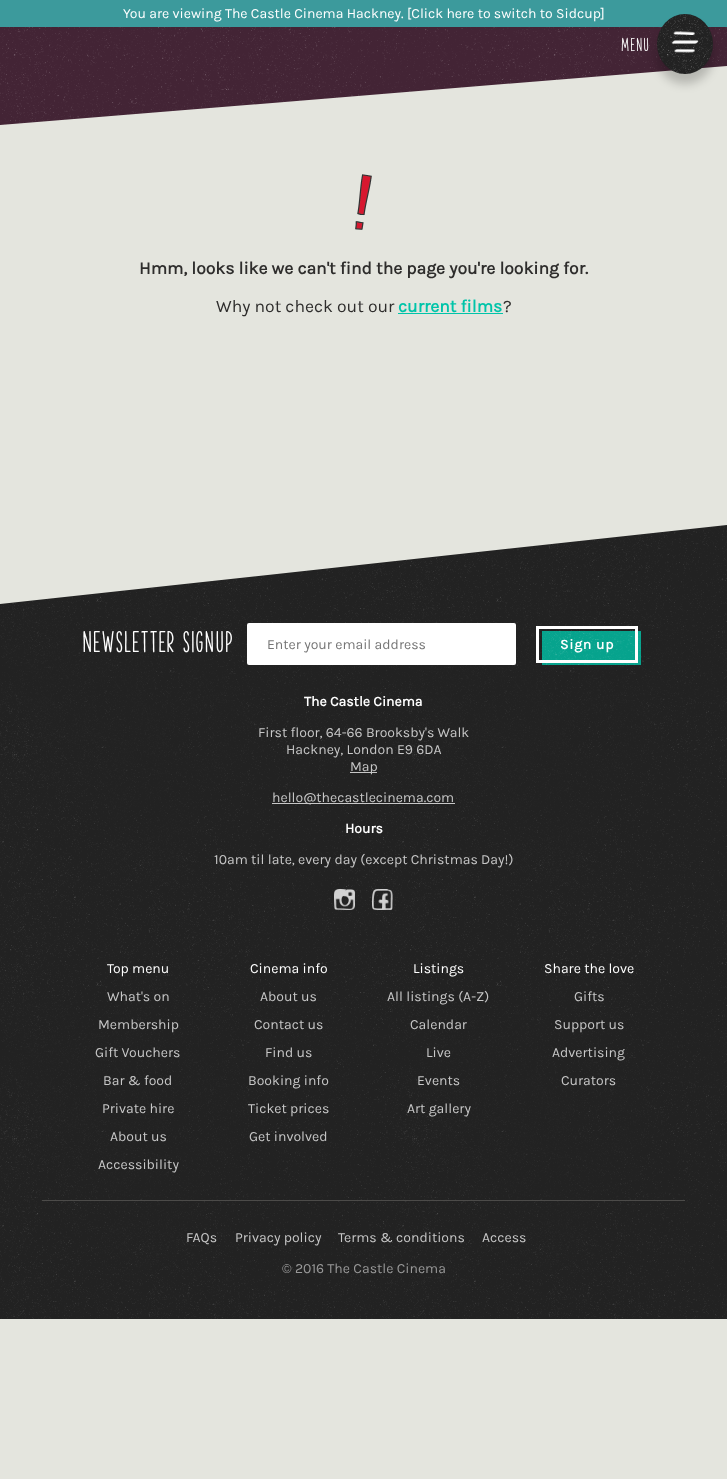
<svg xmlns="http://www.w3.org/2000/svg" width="727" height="1479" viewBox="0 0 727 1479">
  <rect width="100%" height="100%" fill="rgb(228,229,222)"/>
  <rect x="0" y="0" width="727" height="27" fill="rgb(60,154,156)"/>
  <text x="123" y="18" font-family="Karla" font-size="14" fill="rgb(255,255,255)">You are viewing The Castle Cinema Hackney. [Click here to switch to Sidcup]</text>
  <rect x="0" y="27" width="727" height="98" fill="rgb(67,36,53)"/>
  <image x="0" y="27" width="727" height="98" href="pic1.png"/>
  <path d="M0 125H727V66Z" fill="rgb(228,229,222)"/>
  <text x="621" y="51" font-family="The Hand" font-size="17.5" font-weight="bold" letter-spacing="1.4" fill="rgb(255,255,255)">MENU</text>
  <rect x="657" y="24" width="56" height="60" rx="28" fill="rgba(0,0,0,0.2)" filter="blur(5px)"/>
  <ellipse cx="685" cy="44" rx="28" ry="30" fill="rgb(34,34,34)"/>
  <image x="657" y="14" width="56" height="60" href="pic2.png"/>
  <image x="671" y="31" width="28" height="22" href="pic3.png"/>
  <image x="355" y="174" width="17" height="56" href="pic4.png"/>
  <text x="139" y="274" font-family="Karla" font-size="17.5" font-weight="bold" fill="rgb(46,45,44)">Hmm, looks like we can't find the page you're looking for.</text>
  <text x="216" y="312" font-family="Karla" font-size="17.5" fill="rgb(46,45,44)">Why not check out our</text>
  <text x="398" y="312" font-family="Karla" font-size="17.5" font-weight="bold" fill="rgb(0,196,169)">current films</text>
  <rect x="398" y="313" width="105" height="1" fill="rgb(0,196,169)"/>
  <text x="503" y="312" font-family="Karla" font-size="17.5" fill="rgb(46,45,44)">?</text>
  <path d="M0 604V1319H727V525Z" fill="rgb(34,34,34)"/>
  <image x="0" y="526" width="727" height="793" href="pic5.png"/>
  <text x="82" y="652" font-family="The Hand" font-size="28" font-weight="bold" letter-spacing="1.4" fill="rgb(255,255,255)">Newsletter signup</text>
  <rect x="247" y="623" width="269" height="42" rx="2" fill="rgb(255,255,255)"/>
  <text x="267" y="649" font-family="Karla" font-size="14" fill="rgb(117,117,117)">Enter your email address</text>
  <rect x="542" y="631" width="99" height="34" fill="rgba(0,196,169,0.8)"/>
  <image x="542" y="631" width="99" height="34" href="pic6.png"/>
  <rect x="537.5" y="627.5" width="99" height="34" fill="none" stroke="rgb(255,255,255)" stroke-width="3"/>
  <text x="560" y="649" font-family="Karla" font-size="14" font-weight="bold" letter-spacing="0.75" fill="rgb(255,255,255)">Sign up</text>
  <text x="304" y="706" font-family="Karla" font-size="14" font-weight="bold" fill="rgb(255,255,255)">The Castle Cinema</text>
  <g font-family="Karla" font-size="14" fill="rgb(199,199,199)">
    <text x="258" y="737">First floor, 64-66 Brooksby's Walk</text>
    <text x="286" y="754">Hackney, London E9 6DA</text>
  </g>
  <rect x="350" y="772" width="27" height="1" fill="rgb(199,199,199)"/>
  <text x="350" y="771" font-family="Karla" font-size="14" fill="rgb(199,199,199)">Map</text>
  <rect x="272" y="803" width="183" height="1" fill="rgb(199,199,199)"/>
  <text x="272" y="802" font-family="Karla" font-size="14" fill="rgb(199,199,199)">hello@thecastlecinema.com</text>
  <text x="345" y="833" font-family="Karla" font-size="14" font-weight="bold" fill="rgb(255,255,255)">Hours</text>
  <text x="214" y="864" font-family="Karla" font-size="14" fill="rgb(199,199,199)">10am til late, every day (except Christmas Day!)</text>
  <image x="334" y="889" width="21" height="21" href="pic7.png"/>
  <image x="372" y="889" width="21" height="21" href="pic8.png"/>
  <text x="107" y="973" font-family="Karla" font-size="14" fill="rgb(255,255,255)">Top menu</text>
  <g font-family="Karla" font-size="14" fill="rgb(199,199,199)">
    <text x="107" y="1001">What's on</text>
    <text x="98" y="1029">Membership</text>
    <text x="95" y="1057">Gift Vouchers</text>
    <text x="103" y="1085">Bar &amp; food</text>
    <text x="102" y="1113">Private hire</text>
    <text x="110" y="1141">About us</text>
    <text x="98" y="1169">Accessibility</text>
  </g>
  <text x="250" y="973" font-family="Karla" font-size="14" fill="rgb(255,255,255)">Cinema info</text>
  <g font-family="Karla" font-size="14" fill="rgb(199,199,199)">
    <text x="260" y="1001">About us</text>
    <text x="254" y="1029">Contact us</text>
    <text x="265" y="1057">Find us</text>
    <text x="248" y="1085">Booking info</text>
    <text x="248" y="1113">Ticket prices</text>
    <text x="249" y="1141">Get involved</text>
  </g>
  <text x="413" y="973" font-family="Karla" font-size="14" fill="rgb(255,255,255)">Listings</text>
  <g font-family="Karla" font-size="14" fill="rgb(199,199,199)">
    <text x="387" y="1001">All listings (A-Z)</text>
    <text x="410" y="1029">Calendar</text>
    <text x="426" y="1057">Live</text>
    <text x="417" y="1085">Events</text>
    <text x="407" y="1113">Art gallery</text>
  </g>
  <text x="544" y="973" font-family="Karla" font-size="14" fill="rgb(255,255,255)">Share the love</text>
  <g font-family="Karla" font-size="14" fill="rgb(199,199,199)">
    <text x="574" y="1001">Gifts</text>
    <text x="554" y="1029">Support us</text>
    <text x="552" y="1057">Advertising</text>
    <text x="561" y="1085">Curators</text>
  </g>
  <rect x="42" y="1200" width="643" height="1" fill="rgb(76,75,73)"/>
  <g font-family="Karla" font-size="14" fill="rgb(199,199,199)">
    <text x="186" y="1242">FAQs</text>
    <text x="235" y="1242">Privacy policy</text>
    <text x="338" y="1242">Terms &amp; conditions</text>
    <text x="482" y="1242">Access</text>
  </g>
  <text x="282" y="1273" font-family="Karla" font-size="14" fill="rgb(153,153,153)">© 2016 The Castle Cinema</text>
</svg>
